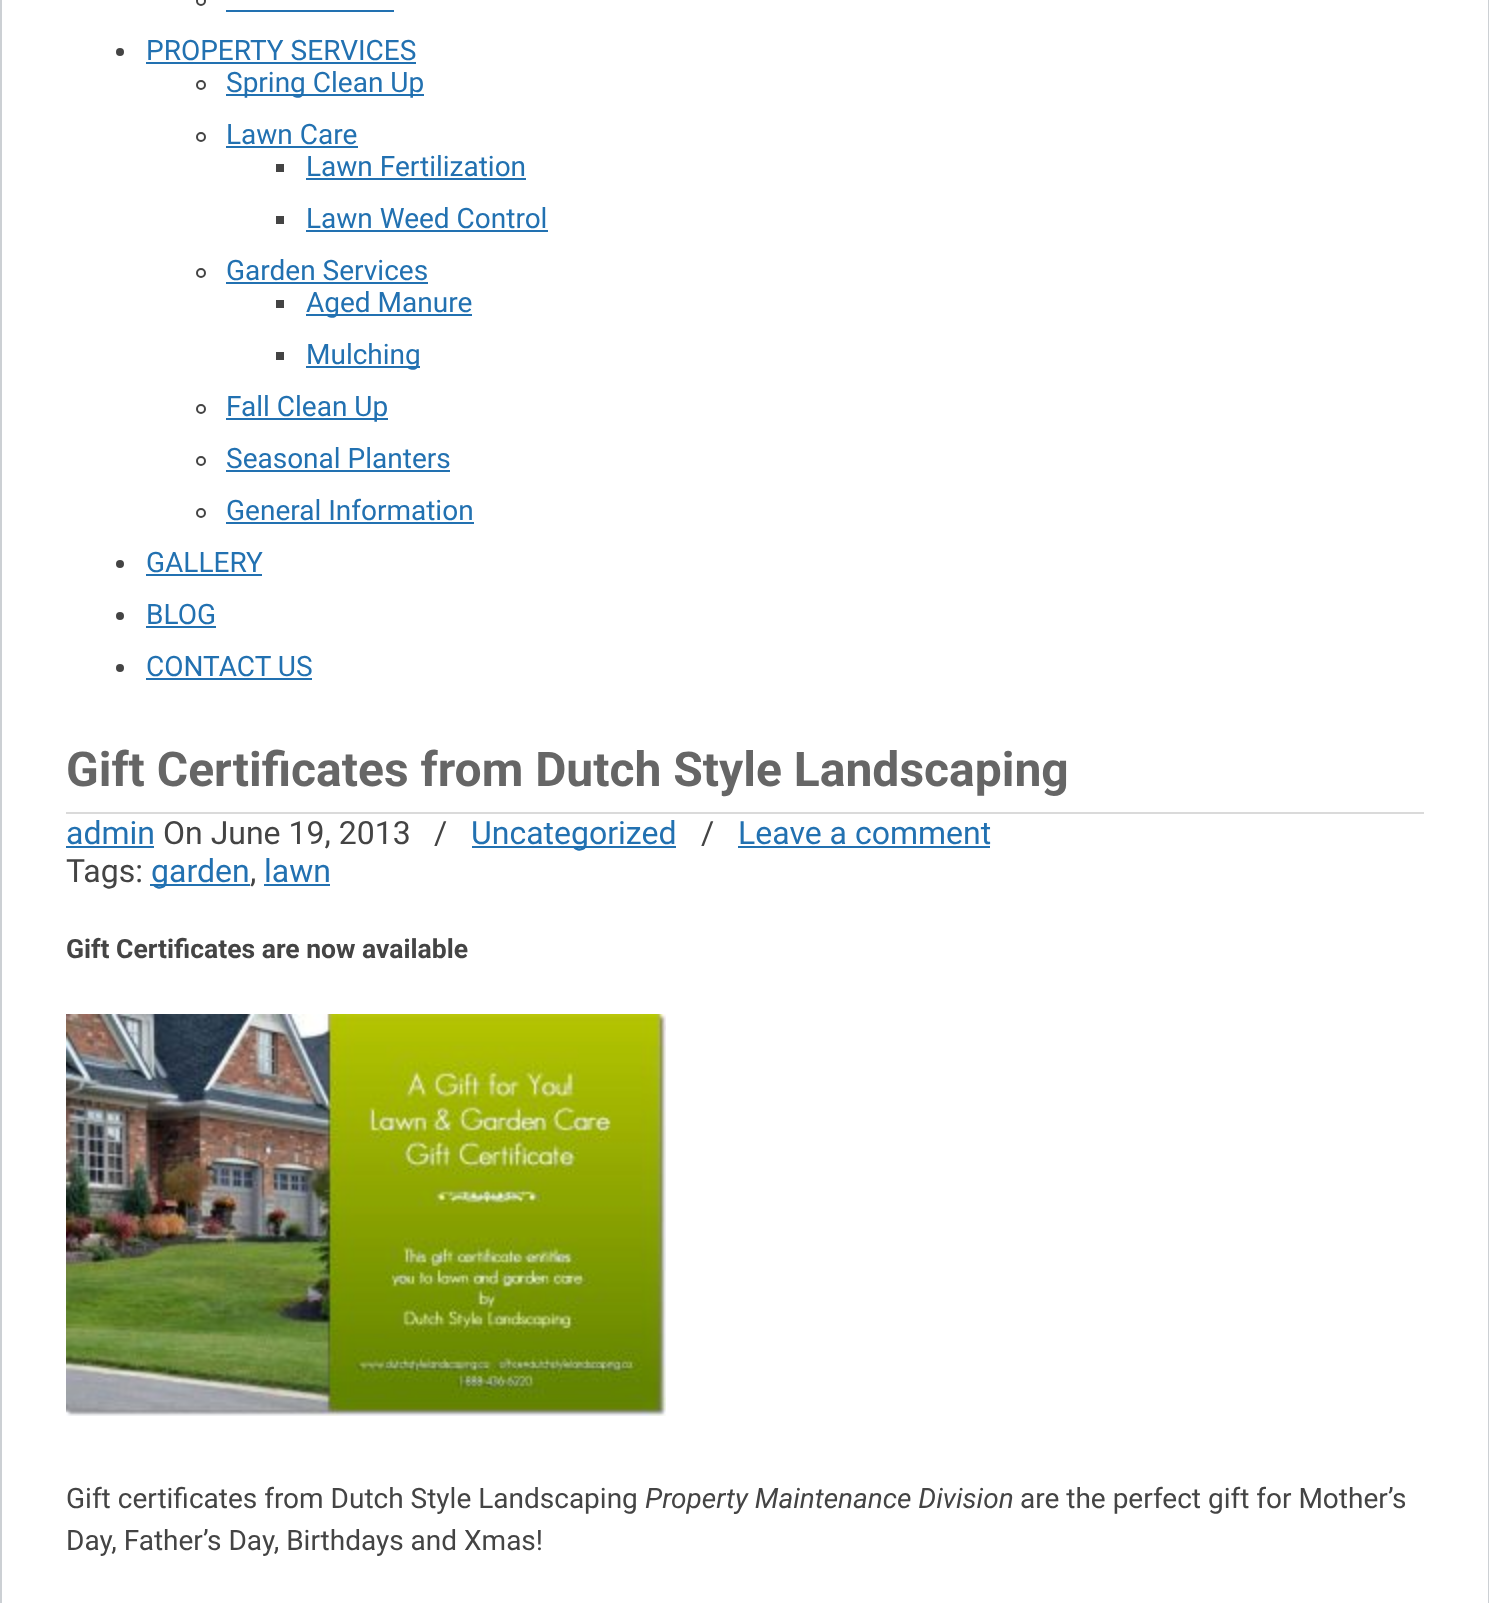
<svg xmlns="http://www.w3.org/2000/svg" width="1489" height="1603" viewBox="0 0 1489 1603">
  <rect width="100%" height="100%" fill="rgb(255,255,255)"/>
  <rect x="1" y="-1" width="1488" height="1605" fill="none" stroke="rgb(204,208,212)" stroke-width="2"/>
  <circle cx="201" cy="1" r="4" fill="none" stroke="rgb(68,68,68)" stroke-width="2"/>
  <rect x="226" y="10" width="168" height="2" fill="rgb(34,113,177)"/>
  <circle cx="120" cy="52" r="4" fill="rgb(68,68,68)"/>
  <text x="146" y="60" font-family="Roboto" font-size="28" fill="rgb(34,113,177)">PROPERTY SERVICES</text>
  <rect x="146" y="62" width="270" height="2" fill="rgb(34,113,177)"/>
  <circle cx="201" cy="85" r="4" fill="none" stroke="rgb(68,68,68)" stroke-width="2"/>
  <rect x="226" y="94" width="198" height="2" fill="rgb(34,113,177)"/>
  <text x="226" y="92" font-family="Roboto" font-size="28" fill="rgb(34,113,177)">Spring Clean Up</text>
  <circle cx="201" cy="137" r="4" fill="none" stroke="rgb(68,68,68)" stroke-width="2"/>
  <text x="226" y="144" font-family="Roboto" font-size="28" fill="rgb(34,113,177)">Lawn Care</text>
  <rect x="226" y="146" width="132" height="2" fill="rgb(34,113,177)"/>
  <rect x="276" y="164" width="8" height="8" fill="rgb(68,68,68)"/>
  <text x="306" y="176" font-family="Roboto" font-size="28" fill="rgb(34,113,177)">Lawn Fertilization</text>
  <rect x="306" y="178" width="220" height="2" fill="rgb(34,113,177)"/>
  <rect x="276" y="216" width="8" height="8" fill="rgb(68,68,68)"/>
  <text x="306" y="228" font-family="Roboto" font-size="28" fill="rgb(34,113,177)">Lawn Weed Control</text>
  <rect x="306" y="230" width="242" height="2" fill="rgb(34,113,177)"/>
  <circle cx="201" cy="273" r="4" fill="none" stroke="rgb(68,68,68)" stroke-width="2"/>
  <text x="226" y="280" font-family="Roboto" font-size="28" fill="rgb(34,113,177)">Garden Services</text>
  <rect x="226" y="282" width="202" height="2" fill="rgb(34,113,177)"/>
  <rect x="276" y="300" width="8" height="8" fill="rgb(68,68,68)"/>
  <rect x="306" y="314" width="166" height="2" fill="rgb(34,113,177)"/>
  <text x="306" y="312" font-family="Roboto" font-size="28" fill="rgb(34,113,177)">Aged Manure</text>
  <rect x="276" y="352" width="8" height="8" fill="rgb(68,68,68)"/>
  <rect x="306" y="366" width="114" height="2" fill="rgb(34,113,177)"/>
  <text x="306" y="364" font-family="Roboto" font-size="28" fill="rgb(34,113,177)">Mulching</text>
  <circle cx="201" cy="409" r="4" fill="none" stroke="rgb(68,68,68)" stroke-width="2"/>
  <rect x="226" y="418" width="162" height="2" fill="rgb(34,113,177)"/>
  <text x="226" y="416" font-family="Roboto" font-size="28" fill="rgb(34,113,177)">Fall Clean Up</text>
  <circle cx="201" cy="461" r="4" fill="none" stroke="rgb(68,68,68)" stroke-width="2"/>
  <text x="226" y="468" font-family="Roboto" font-size="28" fill="rgb(34,113,177)">Seasonal Planters</text>
  <rect x="226" y="470" width="224" height="2" fill="rgb(34,113,177)"/>
  <circle cx="201" cy="513" r="4" fill="none" stroke="rgb(68,68,68)" stroke-width="2"/>
  <text x="226" y="520" font-family="Roboto" font-size="28" fill="rgb(34,113,177)">General Information</text>
  <rect x="226" y="522" width="248" height="2" fill="rgb(34,113,177)"/>
  <circle cx="120" cy="564" r="4" fill="rgb(68,68,68)"/>
  <text x="146" y="572" font-family="Roboto" font-size="28" fill="rgb(34,113,177)">GALLERY</text>
  <rect x="146" y="574" width="116" height="2" fill="rgb(34,113,177)"/>
  <circle cx="120" cy="616" r="4" fill="rgb(68,68,68)"/>
  <text x="146" y="624" font-family="Roboto" font-size="28" fill="rgb(34,113,177)">BLOG</text>
  <rect x="146" y="626" width="70" height="2" fill="rgb(34,113,177)"/>
  <circle cx="120" cy="668" r="4" fill="rgb(68,68,68)"/>
  <text x="146" y="676" font-family="Roboto" font-size="28" fill="rgb(34,113,177)">CONTACT US</text>
  <rect x="146" y="678" width="166" height="2" fill="rgb(34,113,177)"/>
  <rect x="66" y="812" width="1358" height="2" fill="rgb(218,218,218)"/>
  <text x="66" y="786" font-family="Roboto" font-size="48" font-weight="bold" fill="rgb(102,102,102)">Gift Certificates from Dutch Style Landscaping</text>
  <text x="66" y="844" font-family="Roboto" font-size="32" fill="rgb(34,113,177)">admin</text>
  <rect x="66" y="846" width="88" height="2" fill="rgb(34,113,177)"/>
  <g font-family="Roboto" font-size="32" fill="rgb(68,68,68)">
    <text x="163" y="844">On June 19, 2013</text>
    <text x="434" y="844">/</text>
  </g>
  <rect x="472" y="846" width="204" height="2" fill="rgb(34,113,177)"/>
  <text x="471" y="844" font-family="Roboto" font-size="32" fill="rgb(34,113,177)">Uncategorized</text>
  <text x="701" y="844" font-family="Roboto" font-size="32" fill="rgb(68,68,68)">/</text>
  <text x="738" y="844" font-family="Roboto" font-size="32" fill="rgb(34,113,177)">Leave a comment</text>
  <rect x="738" y="846" width="252" height="2" fill="rgb(34,113,177)"/>
  <text x="66" y="882" font-family="Roboto" font-size="32" fill="rgb(68,68,68)">Tags:</text>
  <rect x="150" y="884" width="100" height="2" fill="rgb(34,113,177)"/>
  <text x="151" y="882" font-family="Roboto" font-size="32" fill="rgb(34,113,177)">garden</text>
  <text x="250" y="882" font-family="Roboto" font-size="32" fill="rgb(68,68,68)">,</text>
  <text x="264" y="882" font-family="Roboto" font-size="32" fill="rgb(34,113,177)">lawn</text>
  <rect x="264" y="884" width="66" height="2" fill="rgb(34,113,177)"/>
  <text x="66" y="958" font-family="Roboto" font-size="26.5" font-weight="bold" fill="rgb(68,68,68)">Gift Certificates are now available</text>
  <image x="66" y="1014" width="600" height="402" href="pic1.png"/>
  <text x="66" y="1508" font-family="Roboto" font-size="28" fill="rgb(68,68,68)">Gift certificates from Dutch Style Landscaping</text>
  <text x="645" y="1508" font-family="Roboto" font-size="28" font-style="italic" fill="rgb(68,68,68)">Property Maintenance Division</text>
  <g font-family="Roboto" font-size="28" fill="rgb(68,68,68)">
    <text x="1020" y="1508">are the perfect gift for Mother’s</text>
    <text x="66" y="1550">Day, Father’s Day, Birthdays and Xmas!</text>
  </g>
</svg>
